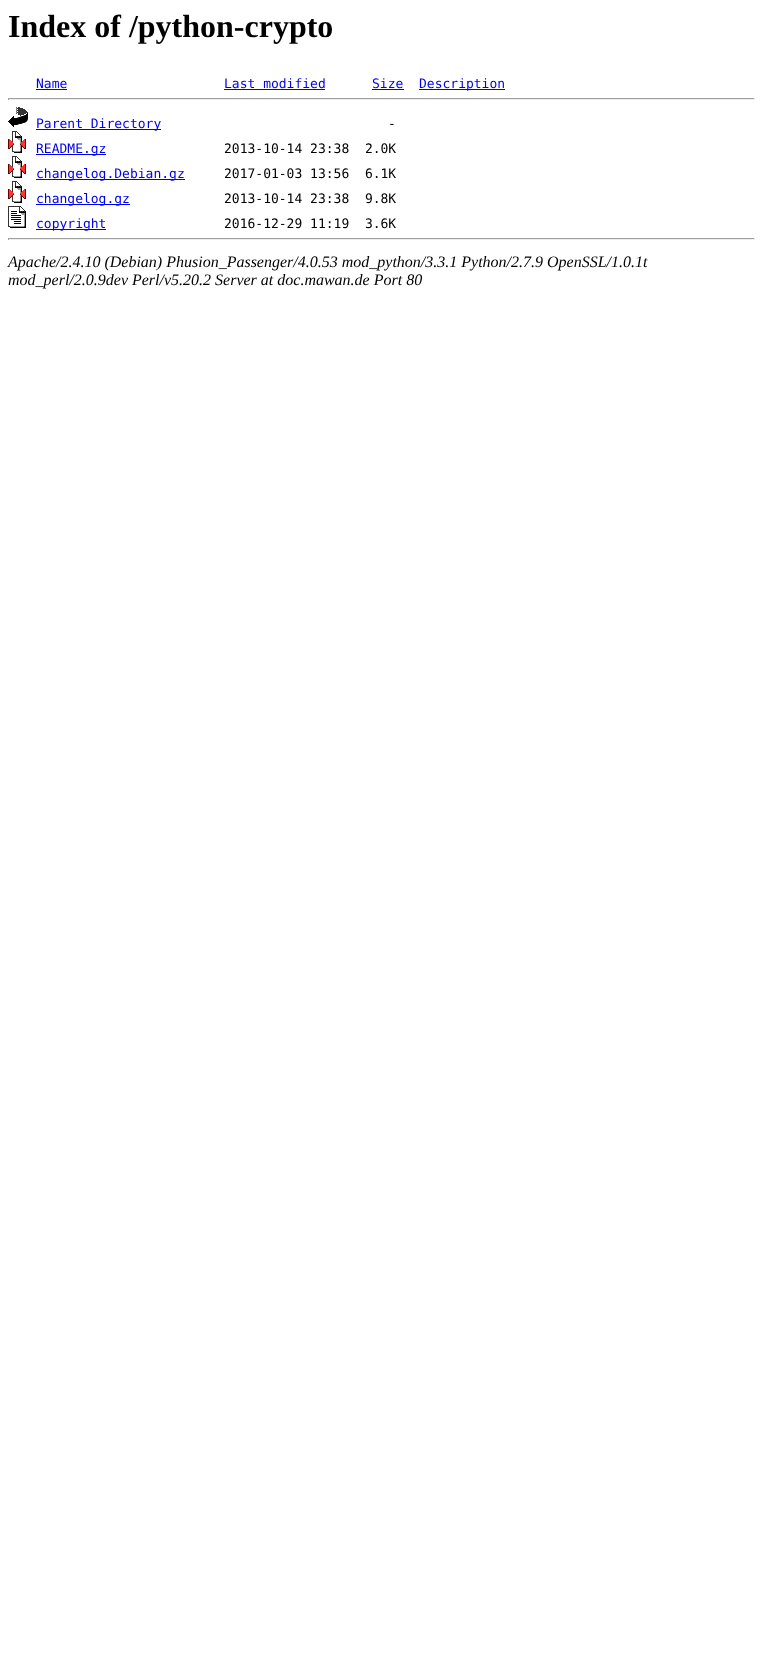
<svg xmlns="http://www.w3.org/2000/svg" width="763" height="1653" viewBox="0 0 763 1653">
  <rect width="100%" height="100%" fill="rgb(255,255,255)"/>
  <text x="8" y="37" font-family="Liberation Serif" font-size="32" font-weight="bold" fill="rgb(0,0,0)">Index of /python-crypto</text>
  <text x="36" y="88" font-family="DejaVu Sans Mono" font-size="13" fill="rgb(0,0,238)">Name</text>
  <rect x="36" y="89" width="31" height="1" fill="rgb(0,0,238)"/>
  <text x="224" y="88" font-family="DejaVu Sans Mono" font-size="13" fill="rgb(0,0,238)">Last modified</text>
  <rect x="224" y="89" width="101" height="1" fill="rgb(0,0,238)"/>
  <text x="372" y="88" font-family="DejaVu Sans Mono" font-size="13" fill="rgb(0,0,238)">Size</text>
  <rect x="372" y="89" width="32" height="1" fill="rgb(0,0,238)"/>
  <rect x="419" y="89" width="86" height="1" fill="rgb(0,0,238)"/>
  <text x="419" y="88" font-family="DejaVu Sans Mono" font-size="13" fill="rgb(0,0,238)">Description</text>
  <rect x="8" y="98" width="747" height="1" fill="rgb(159,159,159)"/>
  <rect x="754" y="98" width="1" height="2" fill="rgb(238,238,238)"/>
  <rect x="8" y="99" width="747" height="1" fill="rgb(238,238,238)"/>
  <rect x="8" y="98" width="1" height="2" fill="rgb(159,159,159)"/>
  <image x="8" y="107" width="20" height="20" href="pic1.png"/>
  <rect x="36" y="129" width="125" height="1" fill="rgb(0,0,238)"/>
  <text x="36" y="128" font-family="DejaVu Sans Mono" font-size="13" fill="rgb(0,0,238)">Parent Directory</text>
  <text x="388" y="128" font-family="DejaVu Sans Mono" font-size="13" fill="rgb(0,0,0)">-</text>
  <image x="8" y="131" width="18" height="22" href="pic2.png"/>
  <rect x="36" y="154" width="70" height="1" fill="rgb(0,0,238)"/>
  <text x="36" y="153" font-family="DejaVu Sans Mono" font-size="13" fill="rgb(0,0,238)">README.gz</text>
  <text x="224" y="153" font-family="DejaVu Sans Mono" font-size="13" fill="rgb(0,0,0)" xml:space="preserve">2013-10-14 23:38  2.0K</text>
  <image x="8" y="156" width="18" height="22" href="pic2.png"/>
  <rect x="36" y="179" width="149" height="1" fill="rgb(0,0,238)"/>
  <text x="36" y="178" font-family="DejaVu Sans Mono" font-size="13" fill="rgb(0,0,238)">changelog.Debian.gz</text>
  <text x="224" y="178" font-family="DejaVu Sans Mono" font-size="13" fill="rgb(0,0,0)" xml:space="preserve">2017-01-03 13:56  6.1K</text>
  <image x="8" y="181" width="18" height="22" href="pic2.png"/>
  <rect x="36" y="204" width="94" height="1" fill="rgb(0,0,238)"/>
  <text x="36" y="203" font-family="DejaVu Sans Mono" font-size="13" fill="rgb(0,0,238)">changelog.gz</text>
  <text x="224" y="203" font-family="DejaVu Sans Mono" font-size="13" fill="rgb(0,0,0)" xml:space="preserve">2013-10-14 23:38  9.8K</text>
  <image x="8" y="206" width="18" height="22" href="pic3.png"/>
  <rect x="36" y="229" width="70" height="1" fill="rgb(0,0,238)"/>
  <text x="36" y="228" font-family="DejaVu Sans Mono" font-size="13" fill="rgb(0,0,238)">copyright</text>
  <text x="224" y="228" font-family="DejaVu Sans Mono" font-size="13" fill="rgb(0,0,0)" xml:space="preserve">2016-12-29 11:19  3.6K</text>
  <rect x="8" y="238" width="747" height="1" fill="rgb(159,159,159)"/>
  <rect x="754" y="238" width="1" height="2" fill="rgb(238,238,238)"/>
  <rect x="8" y="239" width="747" height="1" fill="rgb(238,238,238)"/>
  <rect x="8" y="238" width="1" height="2" fill="rgb(159,159,159)"/>
  <g font-family="Liberation Serif" font-size="16" font-style="italic" fill="rgb(0,0,0)">
    <text>
      <tspan x="8" y="267">Apache/2.4.10 (Debian) Phusion_Passenger/4.0.53 mod_python/3.3.1 Python/2.7.9 OpenSSL/1.0.1t</tspan>
      <tspan x="8" y="285">mod_perl/2.0.9dev Perl/v5.20.2 Server at doc.mawan.de Port 80</tspan>
    </text>
  </g>
</svg>
